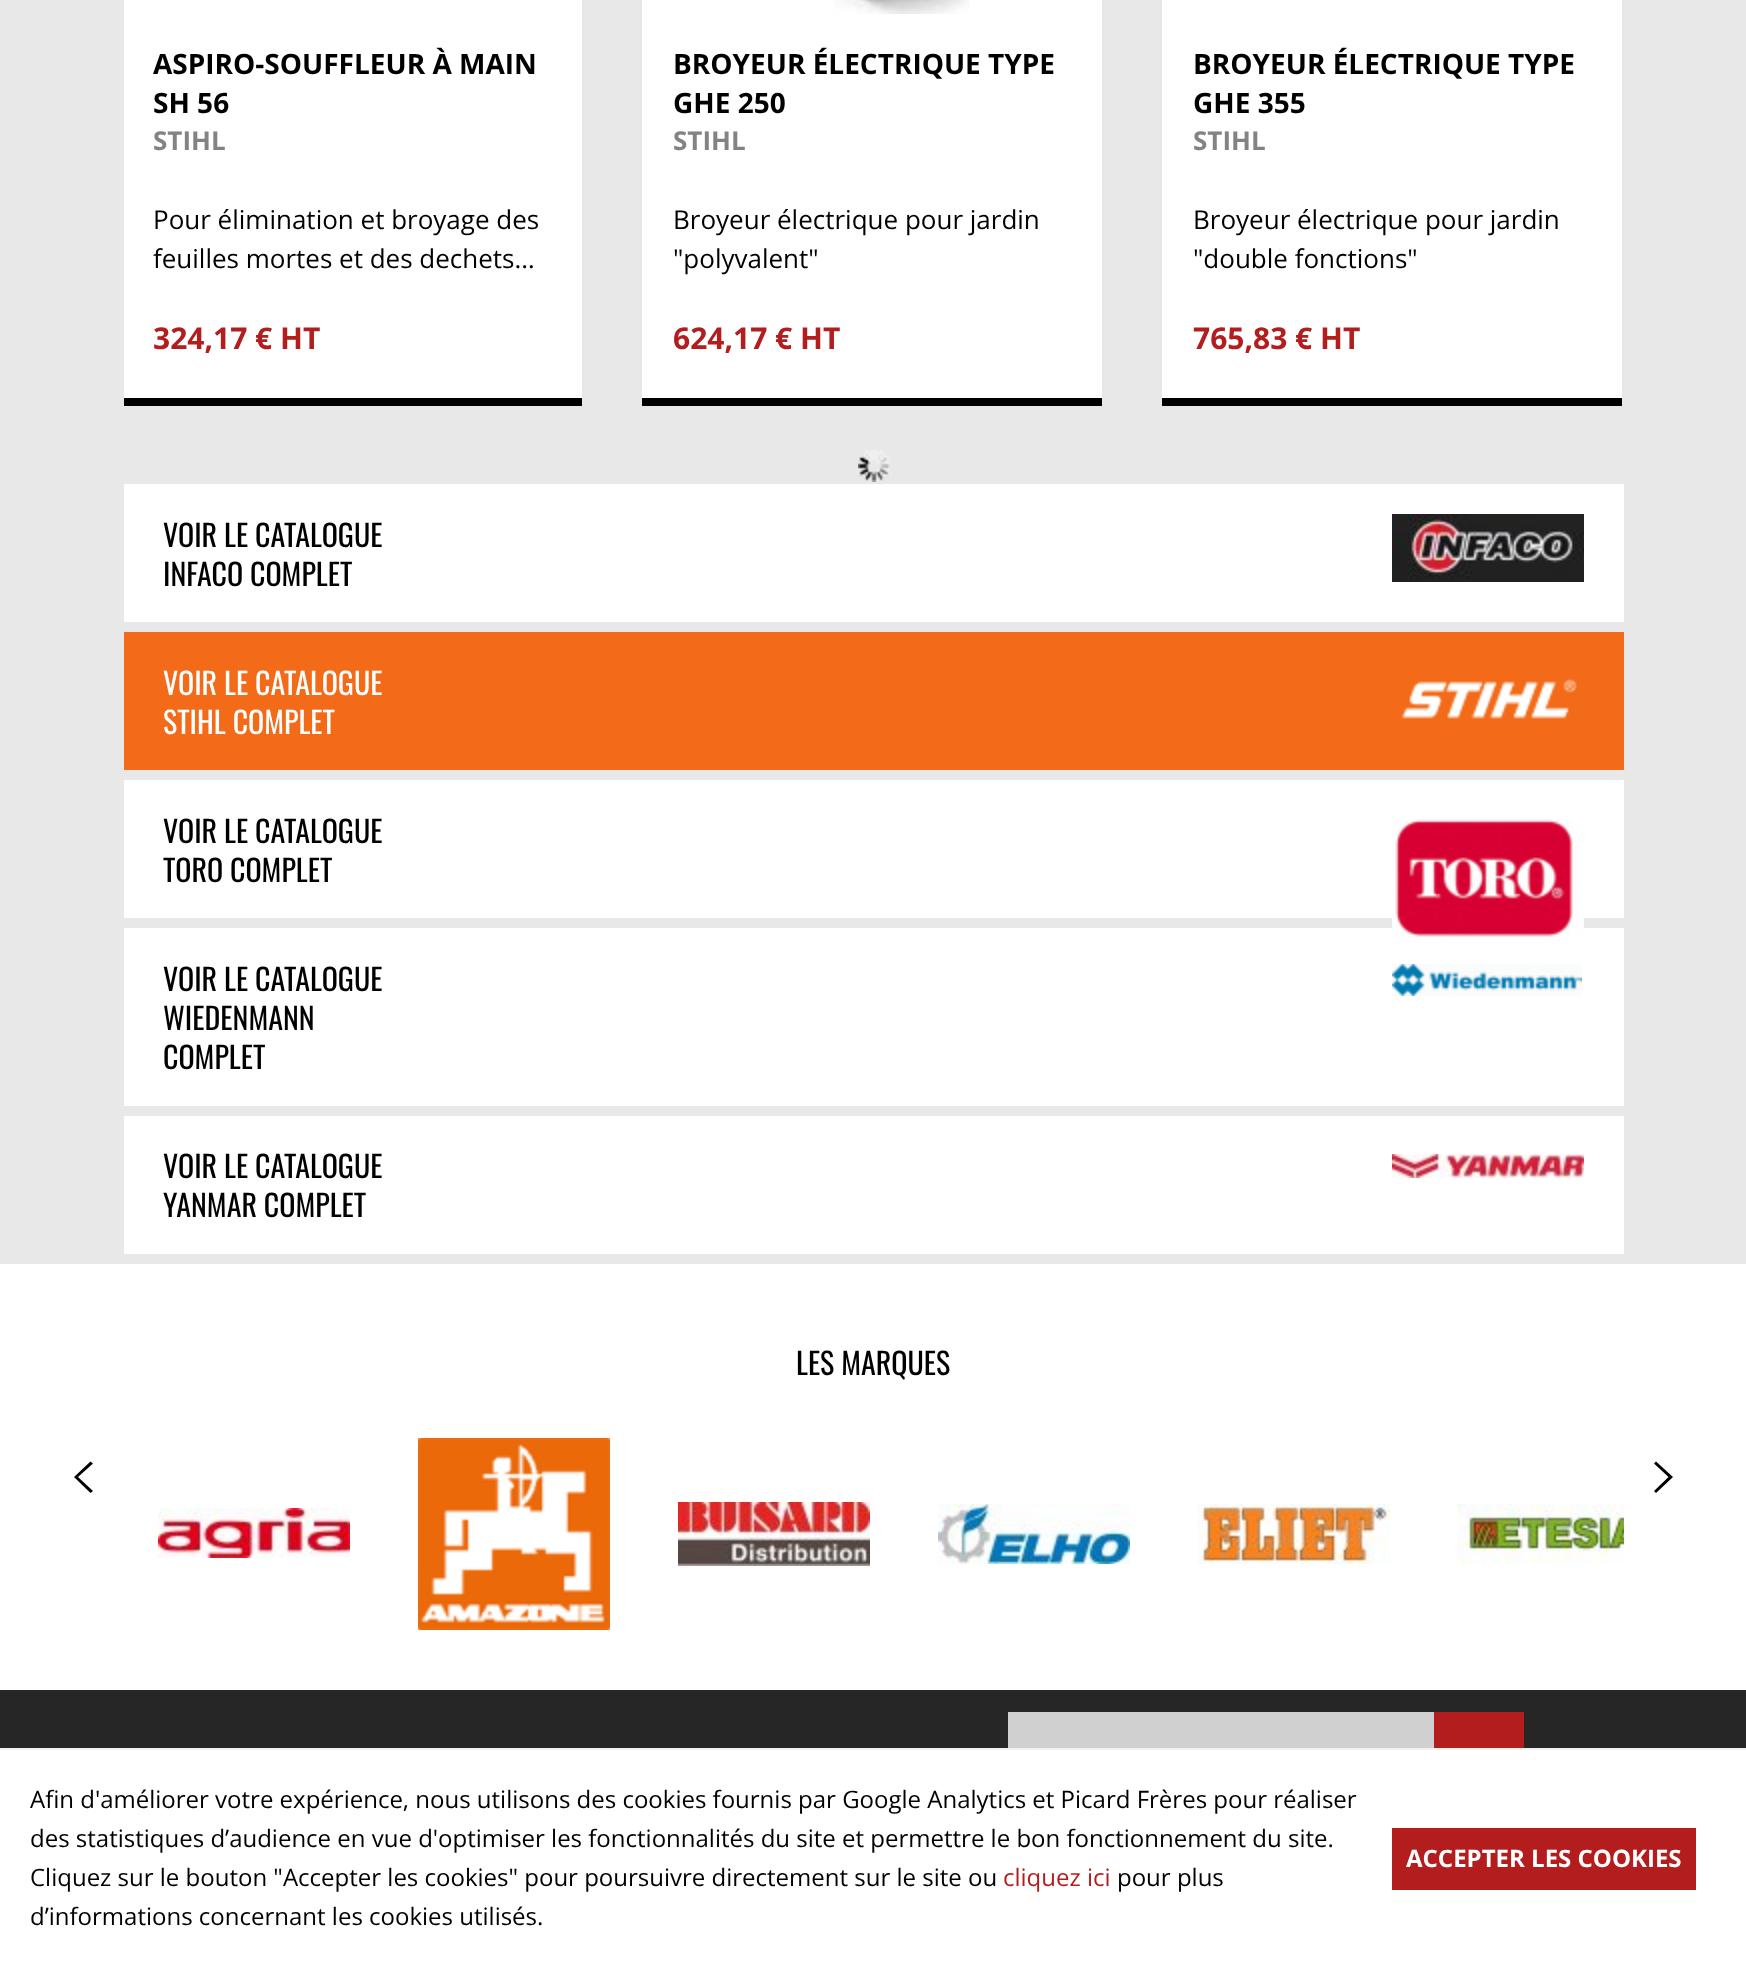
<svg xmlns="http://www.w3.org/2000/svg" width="1746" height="1965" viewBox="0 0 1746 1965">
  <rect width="100%" height="100%" fill="rgb(232,232,232)"/>
  <rect x="124" y="0" width="458" height="398" fill="rgb(255,255,255)"/>
  <rect x="124" y="398" width="458" height="8" fill="rgb(0,0,0)"/>
  <g font-family="Open Sans" font-size="28" font-weight="bold" fill="rgb(0,0,0)">
    <text>
      <tspan x="153" y="74">ASPIRO-SOUFFLEUR À MAIN</tspan>
      <tspan x="153" y="113">SH 56</tspan>
    </text>
  </g>
  <text x="153" y="150" font-family="Open Sans" font-size="26" font-weight="bold" fill="rgb(131,131,131)">STIHL</text>
  <g font-family="Open Sans" font-size="26" fill="rgb(0,0,0)">
    <text>
      <tspan x="153" y="229">Pour élimination et broyage des</tspan>
      <tspan x="153" y="268">feuilles mortes et des dechets…</tspan>
    </text>
  </g>
  <text x="153" y="349" font-family="Open Sans" font-size="30" font-weight="bold" fill="rgb(179,29,29)">324,17 € HT</text>
  <rect x="642" y="0" width="460" height="398" fill="rgb(255,255,255)"/>
  <rect x="642" y="398" width="460" height="8" fill="rgb(0,0,0)"/>
  <image x="834" y="0" width="136" height="14" href="pic1.png"/>
  <g font-family="Open Sans" font-size="28" font-weight="bold" fill="rgb(0,0,0)">
    <text>
      <tspan x="673" y="74">BROYEUR ÉLECTRIQUE TYPE</tspan>
      <tspan x="673" y="113">GHE 250</tspan>
    </text>
  </g>
  <text x="673" y="150" font-family="Open Sans" font-size="26" font-weight="bold" fill="rgb(131,131,131)">STIHL</text>
  <g font-family="Open Sans" font-size="26" fill="rgb(0,0,0)">
    <text>
      <tspan x="673" y="229">Broyeur électrique pour jardin</tspan>
      <tspan x="673" y="268">"polyvalent"</tspan>
    </text>
  </g>
  <text x="673" y="349" font-family="Open Sans" font-size="30" font-weight="bold" fill="rgb(179,29,29)">624,17 € HT</text>
  <rect x="1162" y="0" width="460" height="398" fill="rgb(255,255,255)"/>
  <rect x="1162" y="398" width="460" height="8" fill="rgb(0,0,0)"/>
  <g font-family="Open Sans" font-size="28" font-weight="bold" fill="rgb(0,0,0)">
    <text>
      <tspan x="1193" y="74">BROYEUR ÉLECTRIQUE TYPE</tspan>
      <tspan x="1193" y="113">GHE 355</tspan>
    </text>
  </g>
  <text x="1193" y="150" font-family="Open Sans" font-size="26" font-weight="bold" fill="rgb(131,131,131)">STIHL</text>
  <g font-family="Open Sans" font-size="26" fill="rgb(0,0,0)">
    <text>
      <tspan x="1193" y="229">Broyeur électrique pour jardin</tspan>
      <tspan x="1193" y="268">"double fonctions"</tspan>
    </text>
  </g>
  <text x="1193" y="349" font-family="Open Sans" font-size="30" font-weight="bold" fill="rgb(179,29,29)">765,83 € HT</text>
  <image x="858" y="450" width="32" height="32" href="pic2.png"/>
  <rect x="124" y="484" width="1500" height="138" fill="rgb(255,255,255)"/>
  <g font-family="Oswald" font-size="30" fill="rgb(0,0,0)">
    <text>
      <tspan x="163" y="547">VOIR LE CATALOGUE</tspan>
      <tspan x="163" y="586">INFACO COMPLET</tspan>
    </text>
  </g>
  <image x="1392" y="514" width="192" height="68" href="pic3.png"/>
  <rect x="124" y="632" width="1500" height="138" fill="rgb(243,106,24)"/>
  <g font-family="Oswald" font-size="30" fill="rgb(255,255,255)">
    <text>
      <tspan x="163" y="695">VOIR LE CATALOGUE</tspan>
      <tspan x="163" y="734">STIHL COMPLET</tspan>
    </text>
  </g>
  <image x="1401" y="679" width="176" height="40" href="pic4.png"/>
  <rect x="124" y="780" width="1500" height="138" fill="rgb(255,255,255)"/>
  <g font-family="Oswald" font-size="30" fill="rgb(0,0,0)">
    <text>
      <tspan x="163" y="843">VOIR LE CATALOGUE</tspan>
      <tspan x="163" y="882">TORO COMPLET</tspan>
    </text>
  </g>
  <rect x="124" y="928" width="1500" height="178" fill="rgb(255,255,255)"/>
  <image x="1392" y="819" width="192" height="118" href="pic5.png"/>
  <g font-family="Oswald" font-size="30" fill="rgb(0,0,0)">
    <text>
      <tspan x="163" y="991">VOIR LE CATALOGUE</tspan>
      <tspan x="163" y="1030">WIEDENMANN</tspan>
      <tspan x="163" y="1069">COMPLET</tspan>
    </text>
  </g>
  <image x="1392" y="964" width="190" height="32" href="pic6.png"/>
  <rect x="124" y="1116" width="1500" height="138" fill="rgb(255,255,255)"/>
  <g font-family="Oswald" font-size="30" fill="rgb(0,0,0)">
    <text>
      <tspan x="163" y="1178">VOIR LE CATALOGUE</tspan>
      <tspan x="163" y="1217">YANMAR COMPLET</tspan>
    </text>
  </g>
  <image x="1392" y="1154" width="192" height="24" href="pic7.png"/>
  <rect x="0" y="1264" width="1746" height="426" fill="rgb(255,255,255)"/>
  <text x="796" y="1375" font-family="Oswald" font-size="30" fill="rgb(0,0,0)">LES MARQUES</text>
  <image x="158" y="1508" width="192" height="50" href="pic8.png"/>
  <image x="418" y="1438" width="192" height="192" href="pic9.png"/>
  <image x="678" y="1502" width="192" height="64" href="pic10.png"/>
  <image x="938" y="1504" width="192" height="60" href="pic11.png"/>
  <image x="1198" y="1504" width="192" height="60" href="pic12.png"/>
  <image x="1458" y="1504" width="166" height="60" href="pic13.png"/>
  <path d="M93 1463.5L78 1477L93 1491L90.5 1493L74 1477L90.5 1461.5Z" fill="rgb(0,0,0)"/>
  <path d="M1654 1463.5L1656 1461.5L1673 1477L1656 1493L1654 1491L1668.5 1477Z" fill="rgb(0,0,0)"/>
  <rect x="0" y="1690" width="1746" height="58" fill="rgb(38,38,38)"/>
  <rect x="1008" y="1712" width="426" height="36" fill="rgb(208,208,208)"/>
  <rect x="1434" y="1712" width="90" height="36" fill="rgb(179,29,29)"/>
  <rect x="0" y="1750" width="1746" height="215" fill="rgb(255,255,255)"/>
  <rect x="0" y="1748" width="1746" height="2" fill="rgb(240,240,240)"/>
  <g font-family="Open Sans" font-size="24" fill="rgb(0,0,0)">
    <text>
      <tspan x="30" y="1808">Afin d'améliorer votre expérience, nous utilisons des cookies fournis par Google Analytics et Picard Frères pour réaliser</tspan>
      <tspan x="30" y="1847">des statistiques d’audience en vue d'optimiser les fonctionnalités du site et permettre le bon fonctionnement du site.</tspan>
      <tspan x="30" y="1886">Cliquez sur le bouton "Accepter les cookies" pour poursuivre directement sur le site ou</tspan>
    </text>
  </g>
  <text x="1003" y="1886" font-family="Open Sans" font-size="24" fill="rgb(179,29,29)">cliquez ici</text>
  <g font-family="Open Sans" font-size="24" fill="rgb(0,0,0)">
    <text x="1117" y="1886">pour plus</text>
    <text x="30" y="1925">d’informations concernant les cookies utilisés.</text>
  </g>
  <rect x="1392" y="1828" width="304" height="62" fill="rgb(179,29,29)"/>
  <text x="1406" y="1867" font-family="Open Sans" font-size="24" font-weight="bold" fill="rgb(255,255,255)">ACCEPTER LES COOKIES</text>
</svg>
